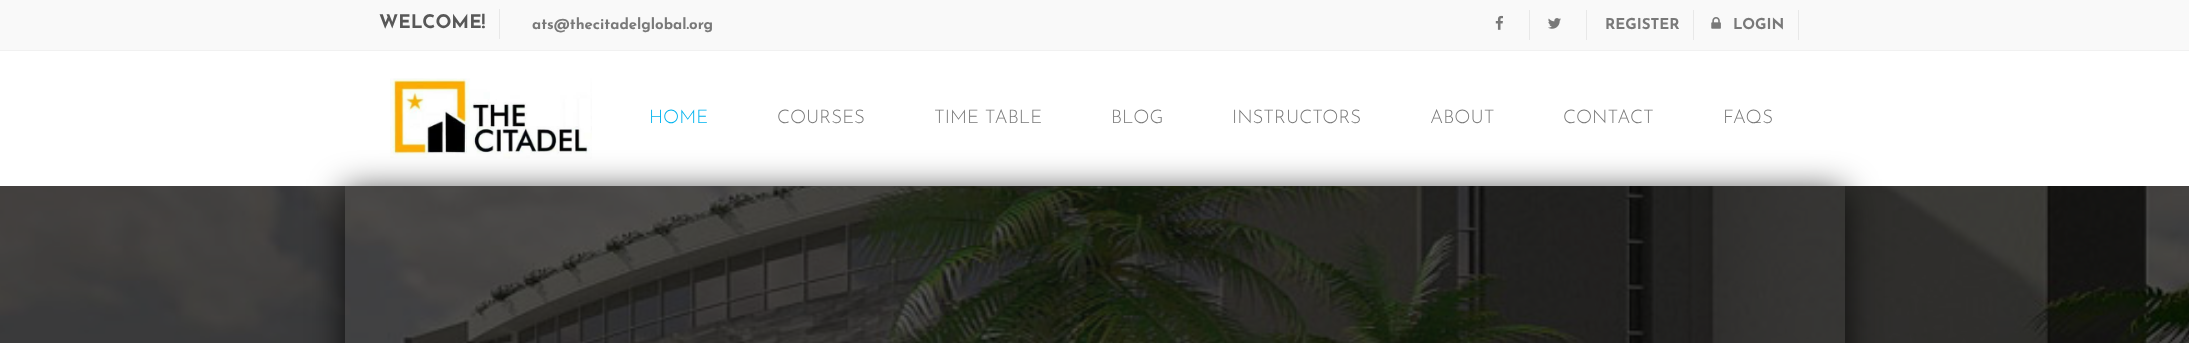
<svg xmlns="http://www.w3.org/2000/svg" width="2189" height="343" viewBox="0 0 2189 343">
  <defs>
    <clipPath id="clip1"><path d="M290 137H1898V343H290ZM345 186H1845V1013H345Z" clip-rule="evenodd"/></clipPath>
  </defs>
  <rect width="100%" height="100%" fill="rgb(255,255,255)"/>
  <rect x="0" y="0" width="2189" height="50" fill="rgb(249,249,249)"/>
  <rect x="0" y="50" width="2189" height="1" fill="rgb(241,241,241)"/>
  <rect x="499" y="9" width="1" height="30" fill="rgb(232,232,232)"/>
  <text x="379" y="28" font-family="Josefin Sans" font-size="18.75" font-weight="bold" fill="rgb(88,88,88)">WELCOME!</text>
  <text x="532" y="29" font-family="Josefin Sans" font-size="15" font-weight="bold" fill="rgb(121,121,121)">ats@thecitadelglobal.org</text>
  <rect x="1529" y="10" width="1" height="30" fill="rgb(232,232,232)"/>
  <image x="1495" y="15" width="8" height="15" href="pic1.png"/>
  <rect x="1586" y="10" width="1" height="30" fill="rgb(232,232,232)"/>
  <image x="1548" y="18" width="13" height="11" href="pic2.png"/>
  <rect x="1693" y="10" width="1" height="30" fill="rgb(232,232,232)"/>
  <text x="1605" y="29" font-family="Josefin Sans" font-size="15" font-weight="bold" fill="rgb(121,121,121)">REGISTER</text>
  <rect x="1798" y="10" width="1" height="30" fill="rgb(232,232,232)"/>
  <image x="1711" y="17" width="10" height="12" href="pic3.png"/>
  <text x="1733" y="29" font-family="Josefin Sans" font-size="15" font-weight="bold" fill="rgb(121,121,121)">LOGIN</text>
  <image x="390" y="78" width="202" height="81" href="pic4.png"/>
  <text x="649" y="123" font-family="Josefin Sans" font-size="18.75" font-weight="300" fill="rgb(0,179,238)">HOME</text>
  <g font-family="Josefin Sans" font-size="18.75" font-weight="300" fill="rgb(121,121,121)">
    <text x="777" y="123">COURSES</text>
    <text x="934" y="123">TIME TABLE</text>
    <text x="1111" y="123">BLOG</text>
    <text x="1232" y="123">INSTRUCTORS</text>
    <text x="1430" y="123">ABOUT</text>
    <text x="1563" y="123">CONTACT</text>
    <text x="1723" y="123">FAQS</text>
  </g>
  <image x="0" y="186" width="2189" height="157" href="pic5.png"/>
  <g clip-path="url(#clip1)">
    <rect x="344" y="191" width="1500" height="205" fill="rgba(0,0,0,0.75)" filter="blur(17.5px)"/>
  </g>
  <rect x="345" y="186" width="1500" height="157" fill="rgba(255,255,255,0.04)"/>
</svg>
